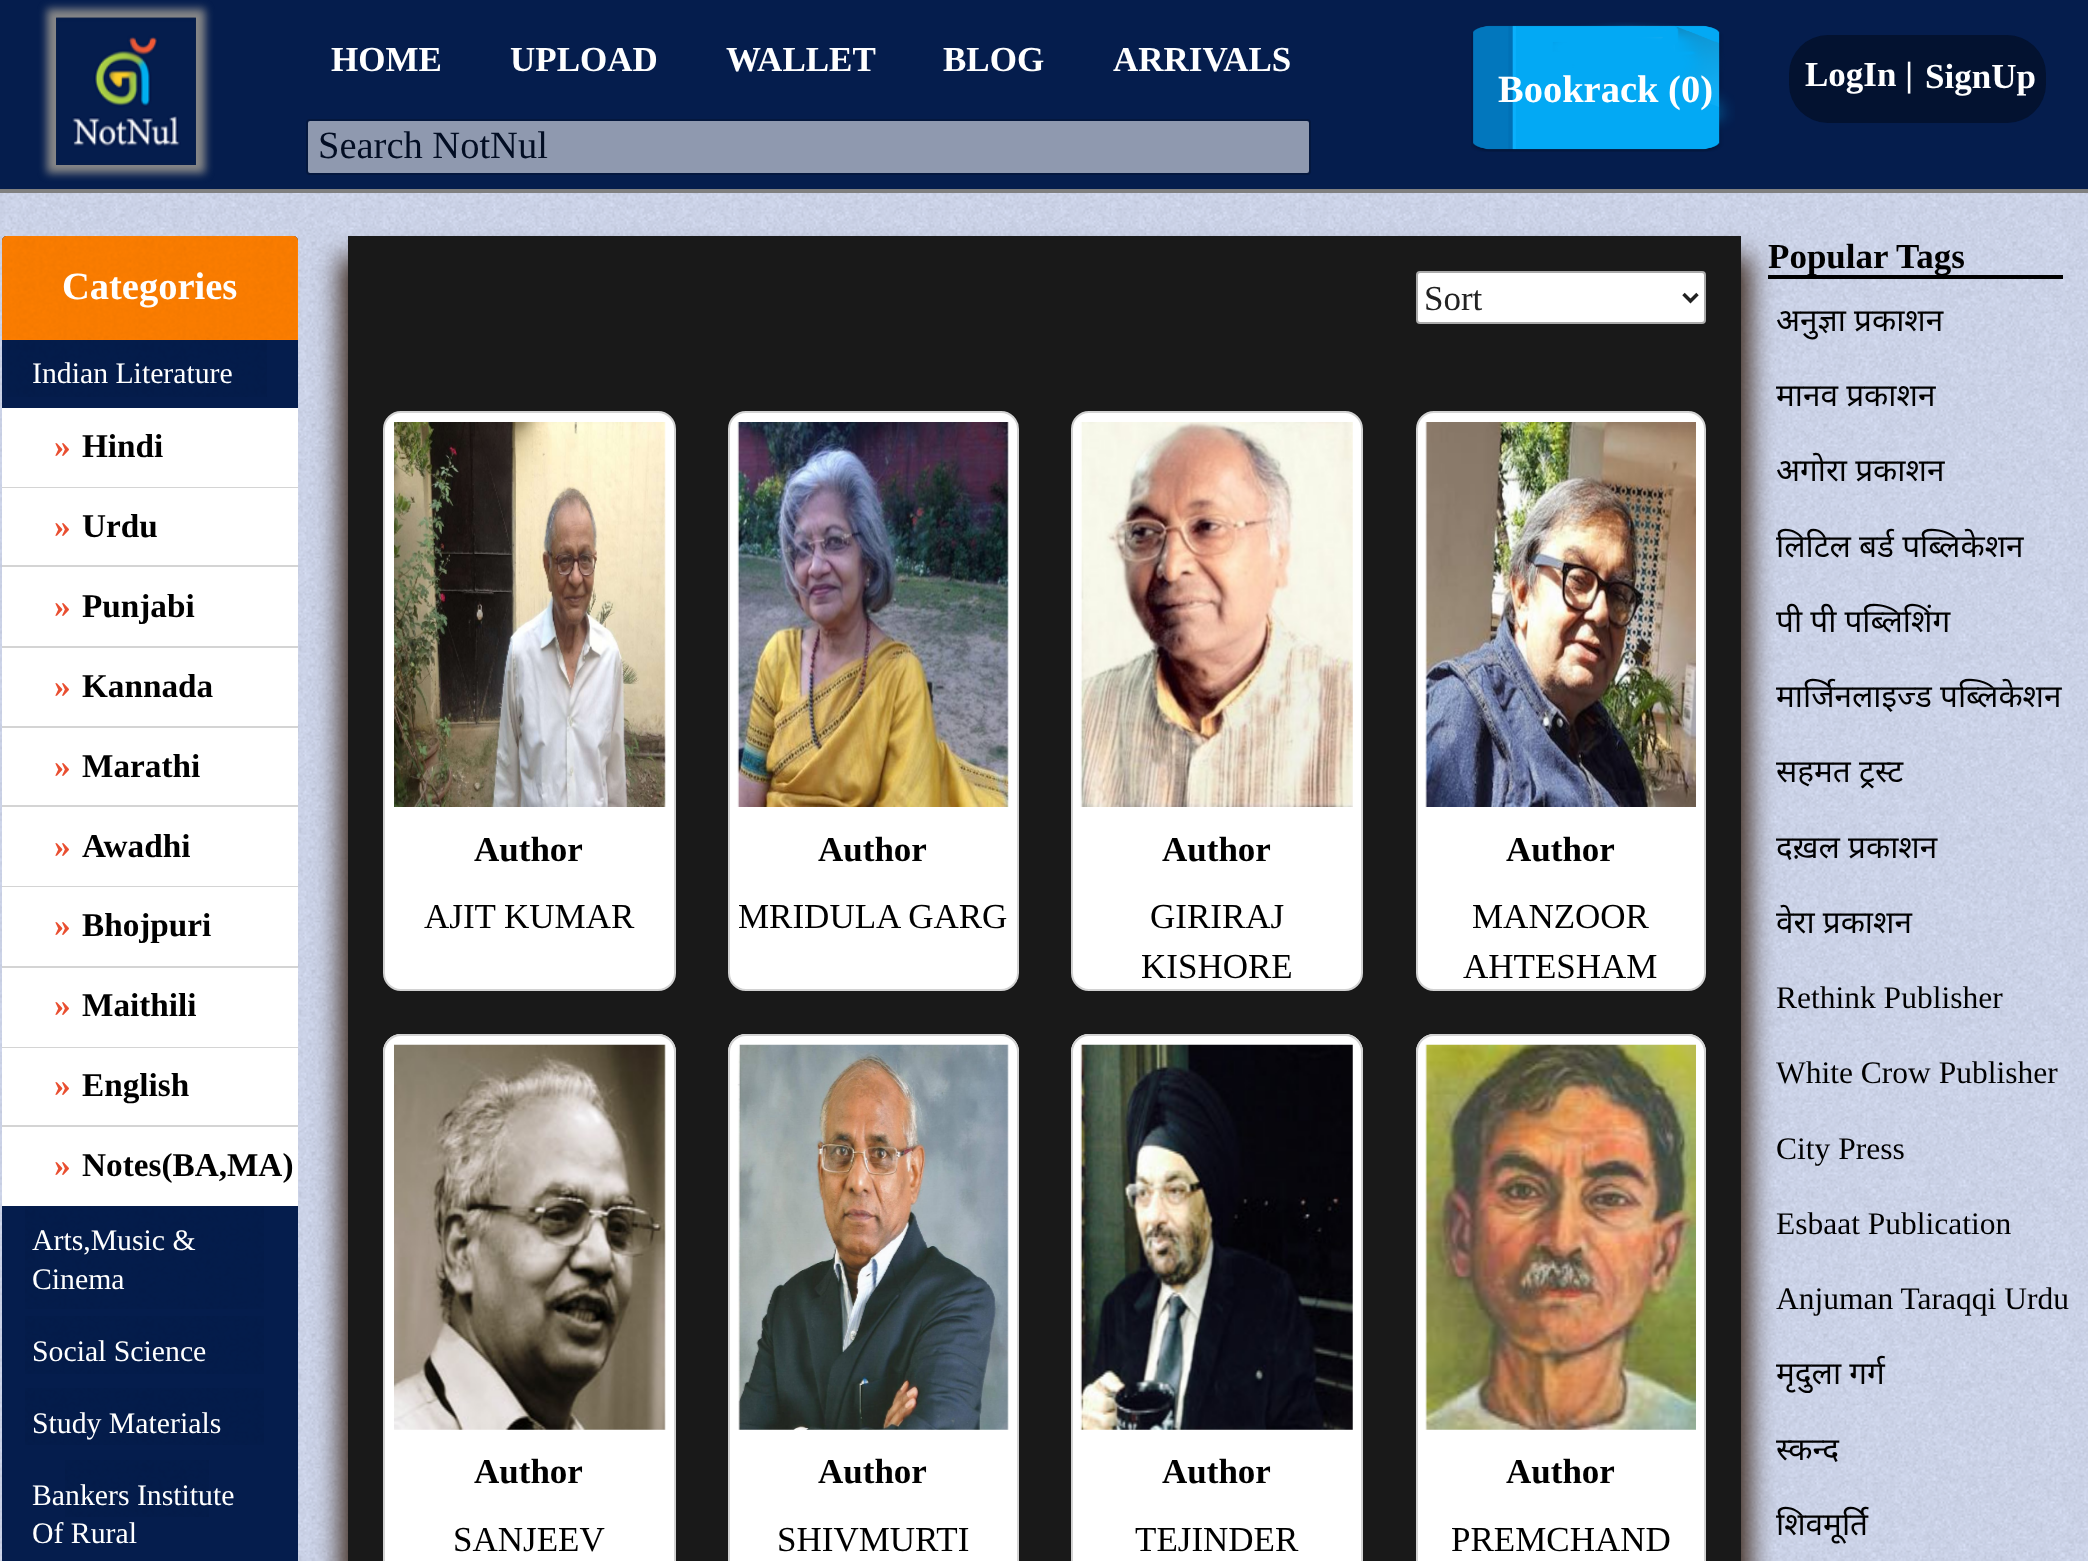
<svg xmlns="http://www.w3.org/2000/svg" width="2088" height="1561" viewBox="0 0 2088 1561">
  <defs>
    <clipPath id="clip1"><path d="M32 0H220V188H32ZM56 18H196V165H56Z" clip-rule="evenodd"/></clipPath>
  </defs>
  <rect width="100%" height="100%" fill="rgb(255,255,255)"/>
  <image x="0" y="193" width="2088" height="1368" href="pic1.png"/>
  <rect x="0" y="0" width="2088" height="189" fill="rgb(5,29,77)"/>
  <rect x="0" y="189" width="2088" height="4" fill="rgb(128,128,128)"/>
  <g clip-path="url(#clip1)">
    <rect x="47" y="9" width="158" height="164" fill="rgb(136,136,136)" filter="blur(4.5px)"/>
  </g>
  <image x="56" y="17" width="140" height="148" href="pic2.png"/>
  <g font-family="Liberation Serif" font-size="35" font-weight="bold" fill="rgb(255,255,255)">
    <text x="331" y="71">HOME</text>
    <text x="510" y="71">UPLOAD</text>
    <text x="726" y="71">WALLET</text>
    <text x="943" y="71">BLOG</text>
    <text x="1113" y="71">ARRIVALS</text>
  </g>
  <rect x="307" y="120" width="1003" height="54" rx="3" fill="rgb(143,153,175)" stroke="rgb(4,23,61)" stroke-width="2"/>
  <text x="318" y="158" font-family="Liberation Serif" font-size="38.5" fill="rgb(2,13,35)">Search NotNul</text>
  <image x="1471" y="22" width="264" height="130" href="pic3.png"/>
  <text x="1498" y="102" font-family="Liberation Serif" font-size="38.5" font-weight="bold" fill="rgb(255,255,255)">Bookrack (0)</text>
  <rect x="1789" y="35" width="257" height="88" rx="39" fill="rgb(3,18,48)"/>
  <g font-family="Liberation Serif" font-size="35" font-weight="bold" fill="rgb(255,255,255)">
    <text x="1805" y="86">LogIn |</text>
    <text x="1925" y="88">SignUp</text>
  </g>
  <path d="M7 236H293C296 236 298 238 298 241V1561H2V241C2 238 4 236 7 236Z" fill="rgb(5,29,77)"/>
  <path d="M7 236H293C296 236 298 238 298 241V340H2V241C2 238 4 236 7 236Z" fill="rgb(255,127,0)"/>
  <image x="2" y="236" width="295" height="103" href="pic4.png"/>
  <text x="62" y="299" font-family="Liberation Serif" font-size="38.5" font-weight="bold" fill="rgb(255,255,255)">Categories</text>
  <image x="7" y="339" width="260" height="58" href="pic5.png"/>
  <text x="32" y="383" font-family="Liberation Serif" font-size="29.75" fill="rgb(255,255,255)">Indian Literature</text>
  <rect x="2" y="408" width="296" height="79" fill="rgb(255,255,255)"/>
  <rect x="2" y="487" width="296" height="1" fill="rgb(212,212,212)"/>
  <text x="54" y="457" font-family="Liberation Serif" font-size="33.25" font-weight="bold" fill="rgb(233,79,49)">»</text>
  <text x="82" y="457" font-family="Liberation Serif" font-size="33.25" font-weight="bold" fill="rgb(0,0,0)">Hindi</text>
  <rect x="2" y="488" width="296" height="77" fill="rgb(255,255,255)"/>
  <rect x="2" y="565" width="296" height="2" fill="rgb(212,212,212)"/>
  <text x="54" y="537" font-family="Liberation Serif" font-size="33.25" font-weight="bold" fill="rgb(233,79,49)">»</text>
  <text x="82" y="537" font-family="Liberation Serif" font-size="33.25" font-weight="bold" fill="rgb(0,0,0)">Urdu</text>
  <rect x="2" y="567" width="296" height="79" fill="rgb(255,255,255)"/>
  <rect x="2" y="646" width="296" height="2" fill="rgb(212,212,212)"/>
  <text x="54" y="617" font-family="Liberation Serif" font-size="33.25" font-weight="bold" fill="rgb(233,79,49)">»</text>
  <text x="82" y="617" font-family="Liberation Serif" font-size="33.25" font-weight="bold" fill="rgb(0,0,0)">Punjabi</text>
  <rect x="2" y="648" width="296" height="78" fill="rgb(255,255,255)"/>
  <rect x="2" y="726" width="296" height="2" fill="rgb(212,212,212)"/>
  <text x="54" y="697" font-family="Liberation Serif" font-size="33.25" font-weight="bold" fill="rgb(233,79,49)">»</text>
  <text x="82" y="697" font-family="Liberation Serif" font-size="33.25" font-weight="bold" fill="rgb(0,0,0)">Kannada</text>
  <rect x="2" y="728" width="296" height="77" fill="rgb(255,255,255)"/>
  <rect x="2" y="805" width="296" height="2" fill="rgb(212,212,212)"/>
  <text x="54" y="777" font-family="Liberation Serif" font-size="33.25" font-weight="bold" fill="rgb(233,79,49)">»</text>
  <text x="82" y="777" font-family="Liberation Serif" font-size="33.25" font-weight="bold" fill="rgb(0,0,0)">Marathi</text>
  <rect x="2" y="807" width="296" height="79" fill="rgb(255,255,255)"/>
  <rect x="2" y="886" width="296" height="1" fill="rgb(212,212,212)"/>
  <text x="54" y="857" font-family="Liberation Serif" font-size="33.25" font-weight="bold" fill="rgb(233,79,49)">»</text>
  <text x="82" y="857" font-family="Liberation Serif" font-size="33.25" font-weight="bold" fill="rgb(0,0,0)">Awadhi</text>
  <rect x="2" y="887" width="296" height="79" fill="rgb(255,255,255)"/>
  <rect x="2" y="966" width="296" height="2" fill="rgb(212,212,212)"/>
  <text x="54" y="936" font-family="Liberation Serif" font-size="33.25" font-weight="bold" fill="rgb(233,79,49)">»</text>
  <text x="82" y="936" font-family="Liberation Serif" font-size="33.25" font-weight="bold" fill="rgb(0,0,0)">Bhojpuri</text>
  <rect x="2" y="968" width="296" height="79" fill="rgb(255,255,255)"/>
  <rect x="2" y="1047" width="296" height="1" fill="rgb(212,212,212)"/>
  <text x="54" y="1016" font-family="Liberation Serif" font-size="33.25" font-weight="bold" fill="rgb(233,79,49)">»</text>
  <text x="82" y="1016" font-family="Liberation Serif" font-size="33.25" font-weight="bold" fill="rgb(0,0,0)">Maithili</text>
  <rect x="2" y="1048" width="296" height="77" fill="rgb(255,255,255)"/>
  <rect x="2" y="1125" width="296" height="2" fill="rgb(212,212,212)"/>
  <text x="54" y="1096" font-family="Liberation Serif" font-size="33.25" font-weight="bold" fill="rgb(233,79,49)">»</text>
  <text x="82" y="1096" font-family="Liberation Serif" font-size="33.25" font-weight="bold" fill="rgb(0,0,0)">English</text>
  <rect x="2" y="1127" width="296" height="79" fill="rgb(255,255,255)"/>
  <text x="54" y="1176" font-family="Liberation Serif" font-size="33.25" font-weight="bold" fill="rgb(233,79,49)">»</text>
  <text x="82" y="1176" font-family="Liberation Serif" font-size="33.25" font-weight="bold" fill="rgb(0,0,0)">Notes(BA,MA)</text>
  <image x="25" y="1206" width="239" height="103" href="pic6.png"/>
  <g font-family="Liberation Serif" font-size="29.75" fill="rgb(255,255,255)">
    <text>
      <tspan x="32" y="1250">Arts,Music &amp;</tspan>
      <tspan x="32" y="1289">Cinema</tspan>
    </text>
  </g>
  <image x="25" y="1316" width="239" height="58" href="pic7.png"/>
  <text x="32" y="1361" font-family="Liberation Serif" font-size="29.75" fill="rgb(255,255,255)">Social Science</text>
  <image x="25" y="1388" width="239" height="57" href="pic8.png"/>
  <text x="32" y="1433" font-family="Liberation Serif" font-size="29.75" fill="rgb(255,255,255)">Study Materials</text>
  <image x="65" y="1460" width="144" height="57" href="pic9.png"/>
  <g font-family="Liberation Serif" font-size="29.75" fill="rgb(255,255,255)">
    <text>
      <tspan x="32" y="1505">Bankers Institute</tspan>
      <tspan x="32" y="1543">Of Rural</tspan>
    </text>
  </g>
  <rect x="340" y="257" width="1410" height="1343" fill="rgb(59,39,26)" filter="blur(13px)"/>
  <rect x="348" y="236" width="1393" height="1325" fill="rgb(25,25,25)"/>
  <rect x="1417" y="272" width="288" height="51" rx="3" fill="rgb(255,255,255)" stroke="rgb(170,170,170)" stroke-width="2"/>
  <path d="M1683.5 294L1690.5 301L1697.5 294" fill="none" stroke="rgb(34,34,34)" stroke-width="3.5"/>
  <text x="1424" y="310" font-family="Liberation Serif" font-size="35" fill="rgb(34,34,34)">Sort</text>
  <rect x="384" y="412" width="291" height="578" rx="17" fill="rgb(255,255,255)" stroke="rgb(210,210,210)" stroke-width="2"/>
  <image x="394" y="422" width="272" height="385" href="pic10.png"/>
  <text x="474" y="861" font-family="Liberation Serif" font-size="35" font-weight="bold" fill="rgb(0,0,0)">Author</text>
  <text x="424" y="928" font-family="Liberation Serif" font-size="35" fill="rgb(0,0,0)">AJIT KUMAR</text>
  <rect x="729" y="412" width="289" height="578" rx="17" fill="rgb(255,255,255)" stroke="rgb(210,210,210)" stroke-width="2"/>
  <image x="737" y="422" width="272" height="385" href="pic11.png"/>
  <text x="818" y="861" font-family="Liberation Serif" font-size="35" font-weight="bold" fill="rgb(0,0,0)">Author</text>
  <text x="738" y="928" font-family="Liberation Serif" font-size="35" fill="rgb(0,0,0)">MRIDULA GARG</text>
  <rect x="1072" y="412" width="290" height="578" rx="17" fill="rgb(255,255,255)" stroke="rgb(210,210,210)" stroke-width="2"/>
  <image x="1080" y="422" width="273" height="385" href="pic12.png"/>
  <text x="1162" y="861" font-family="Liberation Serif" font-size="35" font-weight="bold" fill="rgb(0,0,0)">Author</text>
  <g font-family="Liberation Serif" font-size="35" fill="rgb(0,0,0)">
    <text x="1150" y="928">GIRIRAJ</text>
    <text x="1141" y="978">KISHORE</text>
  </g>
  <rect x="1417" y="412" width="288" height="578" rx="17" fill="rgb(255,255,255)" stroke="rgb(210,210,210)" stroke-width="2"/>
  <image x="1425" y="422" width="271" height="385" href="pic13.png"/>
  <text x="1506" y="861" font-family="Liberation Serif" font-size="35" font-weight="bold" fill="rgb(0,0,0)">Author</text>
  <g font-family="Liberation Serif" font-size="35" fill="rgb(0,0,0)">
    <text x="1472" y="928">MANZOOR</text>
    <text x="1463" y="978">AHTESHAM</text>
  </g>
  <path d="M401 1034H658C668 1034 676 1042 676 1052V1561H383V1052C383 1042 391 1034 401 1034Z" fill="rgb(255,255,255)"/>
  <rect x="384" y="1035" width="291" height="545" rx="17" fill="none" stroke="rgb(210,210,210)" stroke-width="2"/>
  <image x="394" y="1044" width="272" height="386" href="pic14.png"/>
  <text x="474" y="1483" font-family="Liberation Serif" font-size="35" font-weight="bold" fill="rgb(0,0,0)">Author</text>
  <text x="453" y="1551" font-family="Liberation Serif" font-size="35" fill="rgb(0,0,0)">SANJEEV</text>
  <path d="M746 1034H1001C1011 1034 1019 1042 1019 1052V1561H728V1052C728 1042 736 1034 746 1034Z" fill="rgb(255,255,255)"/>
  <rect x="729" y="1035" width="289" height="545" rx="17" fill="none" stroke="rgb(210,210,210)" stroke-width="2"/>
  <image x="737" y="1044" width="272" height="386" href="pic15.png"/>
  <text x="818" y="1483" font-family="Liberation Serif" font-size="35" font-weight="bold" fill="rgb(0,0,0)">Author</text>
  <text x="777" y="1551" font-family="Liberation Serif" font-size="35" fill="rgb(0,0,0)">SHIVMURTI</text>
  <path d="M1089 1034H1345C1355 1034 1363 1042 1363 1052V1561H1071V1052C1071 1042 1079 1034 1089 1034Z" fill="rgb(255,255,255)"/>
  <rect x="1072" y="1035" width="290" height="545" rx="17" fill="none" stroke="rgb(210,210,210)" stroke-width="2"/>
  <image x="1080" y="1044" width="273" height="386" href="pic16.png"/>
  <text x="1162" y="1483" font-family="Liberation Serif" font-size="35" font-weight="bold" fill="rgb(0,0,0)">Author</text>
  <text x="1135" y="1551" font-family="Liberation Serif" font-size="35" fill="rgb(0,0,0)">TEJINDER</text>
  <path d="M1434 1034H1688C1698 1034 1706 1042 1706 1052V1561H1416V1052C1416 1042 1424 1034 1434 1034Z" fill="rgb(255,255,255)"/>
  <rect x="1417" y="1035" width="288" height="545" rx="17" fill="none" stroke="rgb(210,210,210)" stroke-width="2"/>
  <image x="1425" y="1044" width="271" height="386" href="pic17.png"/>
  <text x="1506" y="1483" font-family="Liberation Serif" font-size="35" font-weight="bold" fill="rgb(0,0,0)">Author</text>
  <text x="1451" y="1551" font-family="Liberation Serif" font-size="35" fill="rgb(0,0,0)">PREMCHAND</text>
  <rect x="1768" y="275" width="295" height="4" fill="rgb(0,0,0)"/>
  <text x="1768" y="268" font-family="Liberation Serif" font-size="35" font-weight="bold" fill="rgb(0,0,0)">Popular Tags</text>
  <g font-family="Noto Sans" font-size="31.5" fill="rgb(0,0,0)">
    <text x="1776" y="331">अनुज्ञा प्रकाशन</text>
    <text x="1776" y="406">मानव प्रकाशन</text>
    <text x="1776" y="481">अगोरा प्रकाशन</text>
    <text x="1776" y="557">लिटिल बर्ड पब्लिकेशन</text>
    <text x="1776" y="632">पी पी पब्लिशिंग</text>
    <text x="1776" y="707">मार्जिनलाइज्ड पब्लिकेशन</text>
    <text x="1776" y="782">सहमत ट्रस्ट</text>
    <text x="1776" y="858">दख़ल प्रकाशन</text>
    <text x="1776" y="933">वेरा प्रकाशन</text>
  </g>
  <g font-family="Liberation Serif" font-size="31.5" fill="rgb(0,0,0)">
    <text x="1776" y="1008">Rethink Publisher</text>
    <text x="1776" y="1083">White Crow Publisher</text>
    <text x="1776" y="1159">City Press</text>
    <text x="1776" y="1234">Esbaat Publication</text>
    <text x="1776" y="1309">Anjuman Taraqqi Urdu</text>
  </g>
  <g font-family="Noto Sans" font-size="31.5" fill="rgb(0,0,0)">
    <text x="1776" y="1384">मृदुला गर्ग</text>
    <text x="1776" y="1460">स्कन्द</text>
    <text x="1776" y="1535">शिवमूर्ति</text>
  </g>
</svg>
